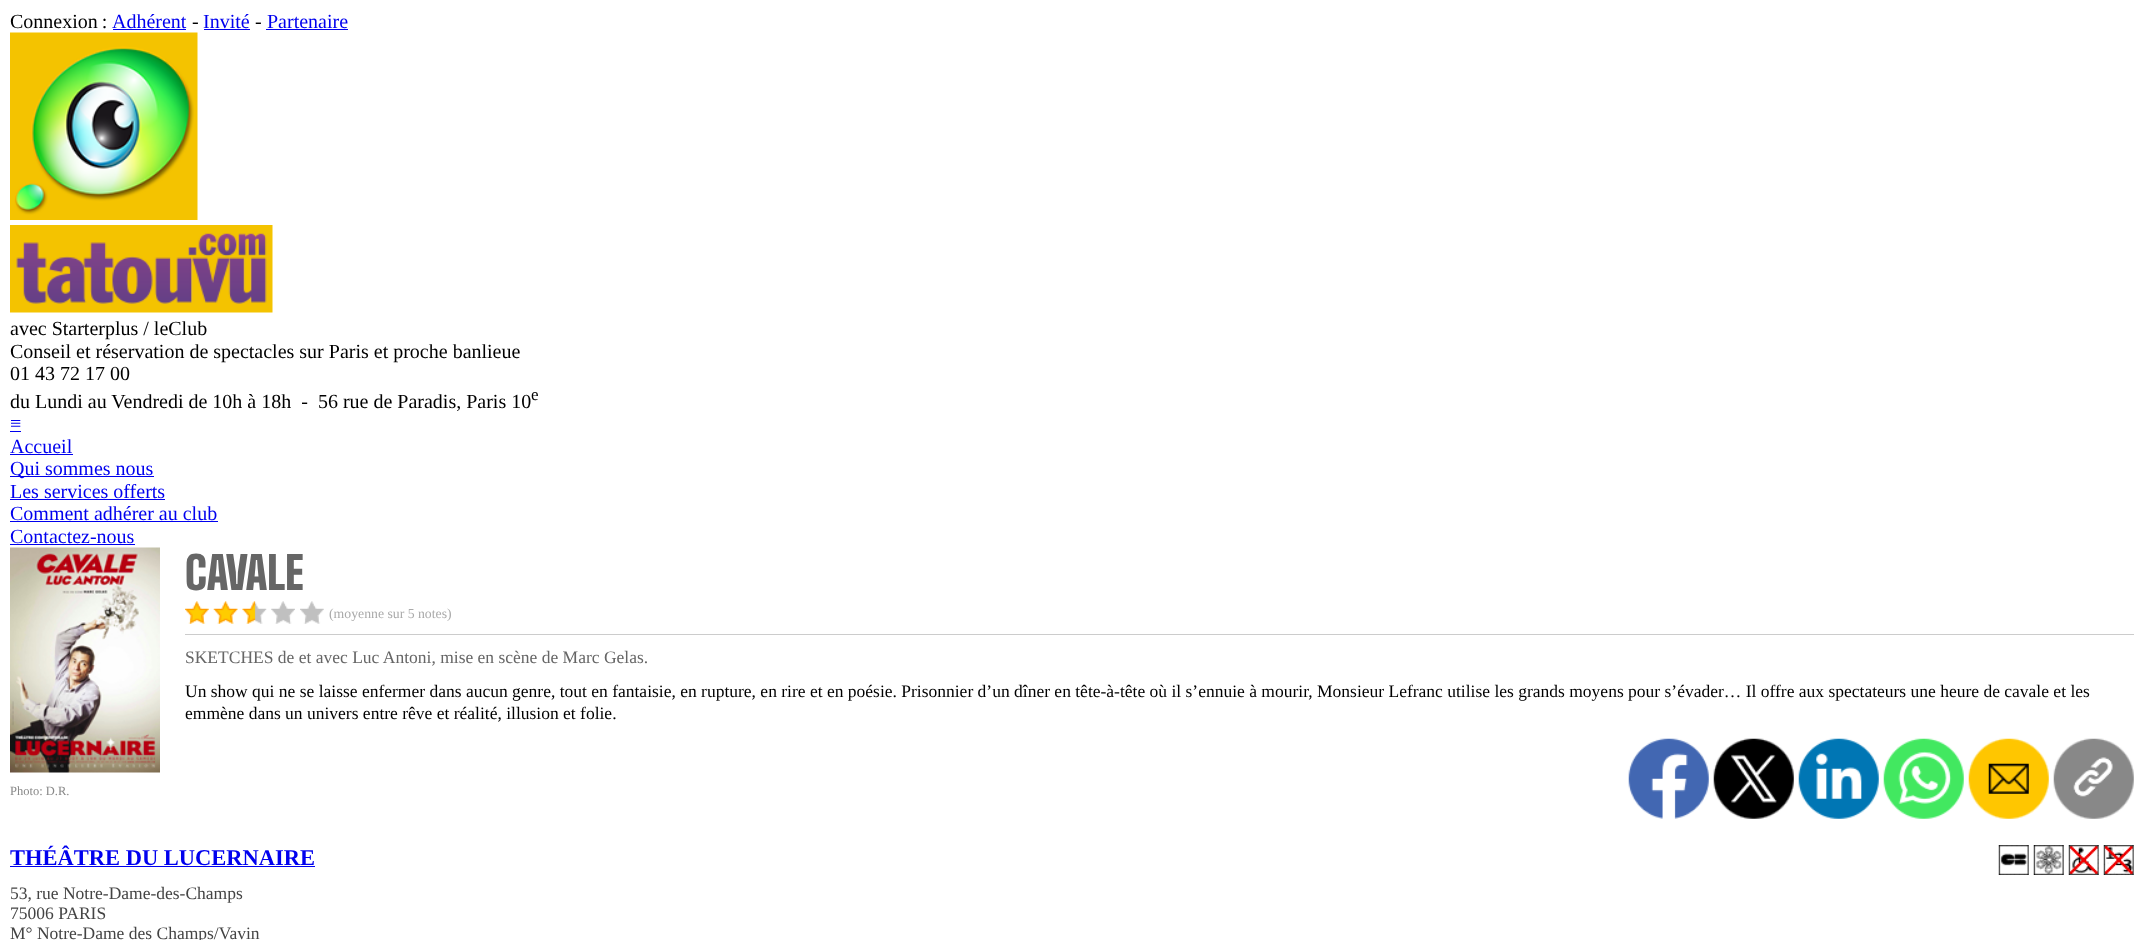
<svg xmlns="http://www.w3.org/2000/svg" width="2143" height="940" viewBox="0 0 2143 940">
  <rect width="100%" height="100%" fill="rgb(255,255,255)"/>
  <text x="10" y="28" word-spacing="-1" font-family="Liberation Serif" font-size="20" fill="rgb(0,0,0)">Connexion :</text>
  <text x="112" y="28" font-family="Liberation Serif" font-size="20" fill="rgb(0,0,238)">Adhérent</text>
  <rect x="113" y="29" width="73" height="1" fill="rgb(0,0,238)"/>
  <text x="192" y="28" font-family="Liberation Serif" font-size="20" fill="rgb(0,0,0)">-</text>
  <text x="203" y="28" font-family="Liberation Serif" font-size="20" fill="rgb(0,0,238)">Invité</text>
  <rect x="204" y="29" width="46" height="1" fill="rgb(0,0,238)"/>
  <text x="255" y="28" font-family="Liberation Serif" font-size="20" fill="rgb(0,0,0)">-</text>
  <text x="267" y="28" font-family="Liberation Serif" font-size="20" fill="rgb(0,0,238)">Partenaire</text>
  <rect x="266" y="29" width="82" height="1" fill="rgb(0,0,238)"/>
  <image x="10" y="32" width="188" height="188" href="pic1.png"/>
  <image x="10" y="225" width="263" height="88" href="pic2.png"/>
  <g font-family="Liberation Serif" font-size="20" fill="rgb(0,0,0)">
    <text xml:space="preserve"><tspan x="10" y="335">avec Starterplus / leClub</tspan><tspan x="10" y="358">Conseil et réservation de spectacles sur Paris et proche banlieue</tspan><tspan x="10" y="380">01 43 72 17 00</tspan><tspan x="10" y="408">du Lundi au Vendredi de 10h à 18h  -  56 rue de Paradis, Paris 10</tspan></text>
  </g>
  <text x="531" y="400" font-family="Liberation Serif" font-size="17" fill="rgb(0,0,0)">e</text>
  <text x="10" y="430" font-family="Liberation Serif" font-size="20" fill="rgb(0,0,238)">≡</text>
  <rect x="10" y="431" width="11" height="1" fill="rgb(0,0,238)"/>
  <text x="10" y="453" font-family="Liberation Serif" font-size="20" fill="rgb(0,0,238)">Accueil</text>
  <rect x="10" y="454" width="63" height="1" fill="rgb(0,0,238)"/>
  <rect x="10" y="476" width="144" height="1" fill="rgb(0,0,238)"/>
  <g font-family="Liberation Serif" font-size="20" fill="rgb(0,0,238)">
    <text>
      <tspan x="10" y="475">Qui sommes nous</tspan>
      <tspan x="10" y="498">Les services offerts</tspan>
    </text>
  </g>
  <rect x="10" y="499" width="155" height="1" fill="rgb(0,0,238)"/>
  <text x="10" y="520" font-family="Liberation Serif" font-size="20" fill="rgb(0,0,238)">Comment adhérer au club</text>
  <rect x="10" y="521" width="208" height="1" fill="rgb(0,0,238)"/>
  <text x="10" y="543" font-family="Liberation Serif" font-size="20" fill="rgb(0,0,238)">Contactez-nous</text>
  <rect x="10" y="544" width="125" height="1" fill="rgb(0,0,238)"/>
  <text x="185" y="590" font-family="Big Shoulders Display" font-size="45" font-weight="900" fill="rgb(102,102,102)">CAVALE</text>
  <image x="185" y="601" width="24" height="23" href="pic3.png"/>
  <image x="213" y="601" width="25" height="23" href="pic4.png"/>
  <image x="242" y="601" width="25" height="23" href="pic5.png"/>
  <image x="271" y="601" width="24" height="23" href="pic6.png"/>
  <image x="300" y="601" width="24" height="23" href="pic7.png"/>
  <text x="329" y="618" font-family="Liberation Serif" font-size="13.75" fill="rgb(170,170,170)">(moyenne sur 5 notes)</text>
  <rect x="185" y="634" width="1949" height="1" fill="rgb(204,204,204)"/>
  <text x="185" y="663" font-family="Liberation Serif" font-size="17.5" fill="rgb(102,102,102)">SKETCHES de et avec Luc Antoni, mise en scène de Marc Gelas.</text>
  <g font-family="Liberation Serif" font-size="17.5" fill="rgb(0,0,0)">
    <text>
      <tspan x="185" y="697">Un show qui ne se laisse enfermer dans aucun genre, tout en fantaisie, en rupture, en rire et en poésie. Prisonnier d’un dîner en tête-à-tête où il s’ennuie à mourir, Monsieur Lefranc utilise les grands moyens pour s’évader… Il offre aux spectateurs une heure de cavale et les</tspan>
      <tspan x="185" y="719">emmène dans un univers entre rêve et réalité, illusion et folie.</tspan>
    </text>
  </g>
  <image x="1628" y="738" width="81" height="81" href="pic8.png"/>
  <image x="1713" y="738" width="81" height="81" href="pic9.png"/>
  <image x="1798" y="738" width="81" height="81" href="pic10.png"/>
  <image x="1883" y="738" width="81" height="81" href="pic11.png"/>
  <image x="1968" y="738" width="81" height="81" href="pic12.png"/>
  <image x="2053" y="738" width="81" height="81" href="pic13.png"/>
  <image x="10" y="547" width="150" height="226" href="pic14.png"/>
  <text x="10" y="795" font-family="Liberation Serif" font-size="12.5" fill="rgb(136,136,136)">Photo: D.R.</text>
  <text x="10" y="865" font-family="Liberation Serif" font-size="22.5" font-weight="bold" fill="rgb(0,0,238)">THÉÂTRE DU LUCERNAIRE</text>
  <rect x="10" y="866" width="305" height="1" fill="rgb(0,0,238)"/>
  <image x="1998" y="845" width="31" height="30" href="pic15.png"/>
  <image x="2033" y="845" width="31" height="30" href="pic16.png"/>
  <image x="2068" y="845" width="31" height="30" href="pic17.png"/>
  <image x="2103" y="845" width="31" height="30" href="pic18.png"/>
  <g font-family="Liberation Serif" font-size="17.5" fill="rgb(68,68,68)">
    <text>
      <tspan x="10" y="899">53, rue Notre-Dame-des-Champs</tspan>
      <tspan x="10" y="919">75006 PARIS</tspan>
      <tspan x="10" y="939">M° Notre-Dame des Champs/Vavin</tspan>
    </text>
  </g>
</svg>
